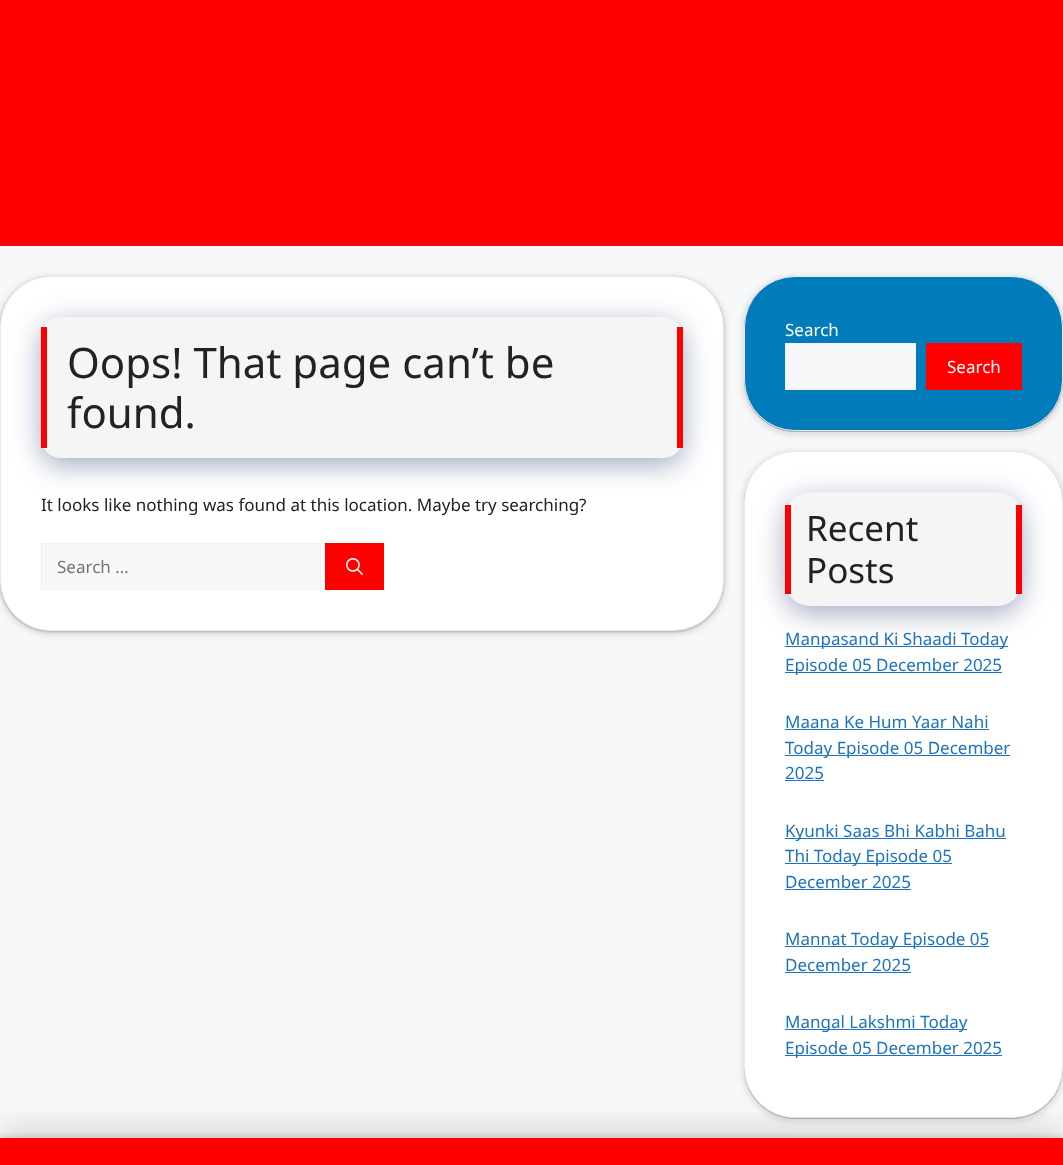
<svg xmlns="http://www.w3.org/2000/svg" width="1063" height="1165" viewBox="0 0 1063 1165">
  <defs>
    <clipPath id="clip1"><rect x="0" y="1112" width="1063" height="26"/></clipPath>
    <clipPath id="clip2"><rect x="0" y="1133" width="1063" height="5"/></clipPath>
  </defs>
  <rect width="100%" height="100%" fill="rgb(247,248,249)"/>
  <rect x="0" y="0" width="1063" height="246" fill="rgb(255,0,0)"/>
  <rect x="-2" y="276" width="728" height="359" rx="53" fill="rgba(60,64,67,0.15)" filter="blur(3px)"/>
  <rect x="0" y="277" width="724" height="355" rx="51" fill="rgba(60,64,67,0.3)" filter="blur(1px)"/>
  <rect x="0.5" y="276.5" width="723" height="354" rx="50.5" fill="rgb(255,255,255)" stroke="rgb(232,234,237)"/>
  <rect x="41" y="324" width="642" height="141" rx="20" fill="rgba(23,43,99,0.4)" filter="blur(14px)"/>
  <rect x="41" y="317" width="642" height="141" rx="20" fill="rgb(245,245,245)"/>
  <rect x="677" y="327" width="6" height="121" fill="rgb(255,0,0)"/>
  <rect x="41" y="327" width="6" height="121" fill="rgb(255,0,0)"/>
  <g font-family="Noto Sans" font-size="42" fill="rgb(34,34,34)">
    <text>
      <tspan x="67" y="378">Oops! That page can’t be</tspan>
      <tspan x="67" y="428">found.</tspan>
    </text>
  </g>
  <text x="41" y="511" font-family="Noto Sans" font-size="17" fill="rgb(34,34,34)">It looks like nothing was found at this location. Maybe try searching?</text>
  <rect x="41.5" y="543.5" width="279" height="46" fill="rgb(247,248,249)" stroke="rgb(240,240,240)"/>
  <text x="57" y="573" font-family="Noto Sans" font-size="17" fill="rgb(117,117,117)">Search …</text>
  <rect x="325" y="543" width="59" height="47" fill="rgb(255,0,0)"/>
  <image x="346" y="558" width="17" height="17" href="pic1.png"/>
  <rect x="742" y="276" width="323" height="159" rx="53" fill="rgba(60,64,67,0.15)" filter="blur(3px)"/>
  <rect x="744" y="277" width="319" height="155" rx="51" fill="rgba(60,64,67,0.3)" filter="blur(0.5px)"/>
  <rect x="744.5" y="276.5" width="318" height="154" rx="50.5" fill="rgb(0,124,186)" stroke="rgb(232,234,237)"/>
  <text x="785" y="336" font-family="Noto Sans" font-size="17" fill="rgb(255,255,255)">Search</text>
  <rect x="785.5" y="343.5" width="130" height="46" fill="rgb(247,248,249)" stroke="rgb(240,240,240)"/>
  <rect x="926" y="343" width="96" height="47" fill="rgb(255,0,0)"/>
  <text x="947" y="373" font-family="Noto Sans" font-size="17" fill="rgb(255,255,255)">Search</text>
  <rect x="742" y="451" width="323" height="671" rx="53" fill="rgba(60,64,67,0.15)" filter="blur(3px)"/>
  <rect x="744" y="452" width="319" height="667" rx="51" fill="rgba(60,64,67,0.3)" filter="blur(0.5px)"/>
  <rect x="0" y="1138" width="1063" height="27" fill="rgb(255,0,0)"/>
  <g clip-path="url(#clip1)">
    <rect x="0" y="1126" width="1063" height="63" fill="rgba(0,0,0,0.12)" filter="blur(15px)"/>
  </g>
  <rect x="744.5" y="451.5" width="318" height="666" rx="50.5" fill="rgb(255,255,255)" stroke="rgb(232,234,237)"/>
  <rect x="785" y="499" width="237" height="114" rx="25" fill="rgba(23,43,99,0.4)" filter="blur(14px)"/>
  <rect x="785" y="492" width="237" height="114" rx="25" fill="rgb(245,245,245)"/>
  <rect x="1016" y="505" width="6" height="89" fill="rgb(255,0,0)"/>
  <rect x="785" y="505" width="6" height="89" fill="rgb(255,0,0)"/>
  <g font-family="Noto Sans" font-size="35" fill="rgb(34,34,34)">
    <text>
      <tspan x="806" y="541">Recent</tspan>
      <tspan x="806" y="583">Posts</tspan>
    </text>
  </g>
  <rect x="785" y="646" width="223" height="1" fill="rgb(30,115,190)"/>
  <text x="785" y="645" font-family="Noto Sans" font-size="17" fill="rgb(30,115,190)">Manpasand Ki Shaadi Today</text>
  <rect x="785" y="672" width="217" height="1" fill="rgb(30,115,190)"/>
  <g font-family="Noto Sans" font-size="17" fill="rgb(30,115,190)">
    <text x="785" y="671">Episode 05 December 2025</text>
    <text x="785" y="728">Maana Ke Hum Yaar Nahi</text>
  </g>
  <rect x="785" y="729" width="204" height="1" fill="rgb(30,115,190)"/>
  <rect x="785" y="755" width="225" height="1" fill="rgb(30,115,190)"/>
  <g font-family="Noto Sans" font-size="17" fill="rgb(30,115,190)">
    <text>
      <tspan x="785" y="754">Today Episode 05 December</tspan>
      <tspan x="785" y="779">2025</tspan>
    </text>
  </g>
  <rect x="785" y="780" width="39" height="1" fill="rgb(30,115,190)"/>
  <rect x="785" y="838" width="221" height="1" fill="rgb(30,115,190)"/>
  <text x="785" y="837" font-family="Noto Sans" font-size="17" fill="rgb(30,115,190)">Kyunki Saas Bhi Kabhi Bahu</text>
  <rect x="785" y="863" width="167" height="1" fill="rgb(30,115,190)"/>
  <g font-family="Noto Sans" font-size="17" fill="rgb(30,115,190)">
    <text>
      <tspan x="785" y="862">Thi Today Episode 05</tspan>
      <tspan x="785" y="888">December 2025</tspan>
    </text>
  </g>
  <rect x="785" y="889" width="126" height="1" fill="rgb(30,115,190)"/>
  <rect x="785" y="946" width="204" height="1" fill="rgb(30,115,190)"/>
  <g font-family="Noto Sans" font-size="17" fill="rgb(30,115,190)">
    <text>
      <tspan x="785" y="945">Mannat Today Episode 05</tspan>
      <tspan x="785" y="971">December 2025</tspan>
    </text>
  </g>
  <rect x="785" y="972" width="126" height="1" fill="rgb(30,115,190)"/>
  <rect x="785" y="1029" width="182" height="1" fill="rgb(30,115,190)"/>
  <text x="785" y="1028" font-family="Noto Sans" font-size="17" fill="rgb(30,115,190)">Mangal Lakshmi Today</text>
  <rect x="785" y="1055" width="217" height="1" fill="rgb(30,115,190)"/>
  <text x="785" y="1054" font-family="Noto Sans" font-size="17" fill="rgb(30,115,190)">Episode 05 December 2025</text>
  <g clip-path="url(#clip2)">
    <rect x="0" y="1135" width="1063" height="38" fill="rgba(0,0,0,0.09)" filter="blur(2.5px)"/>
  </g>
</svg>
